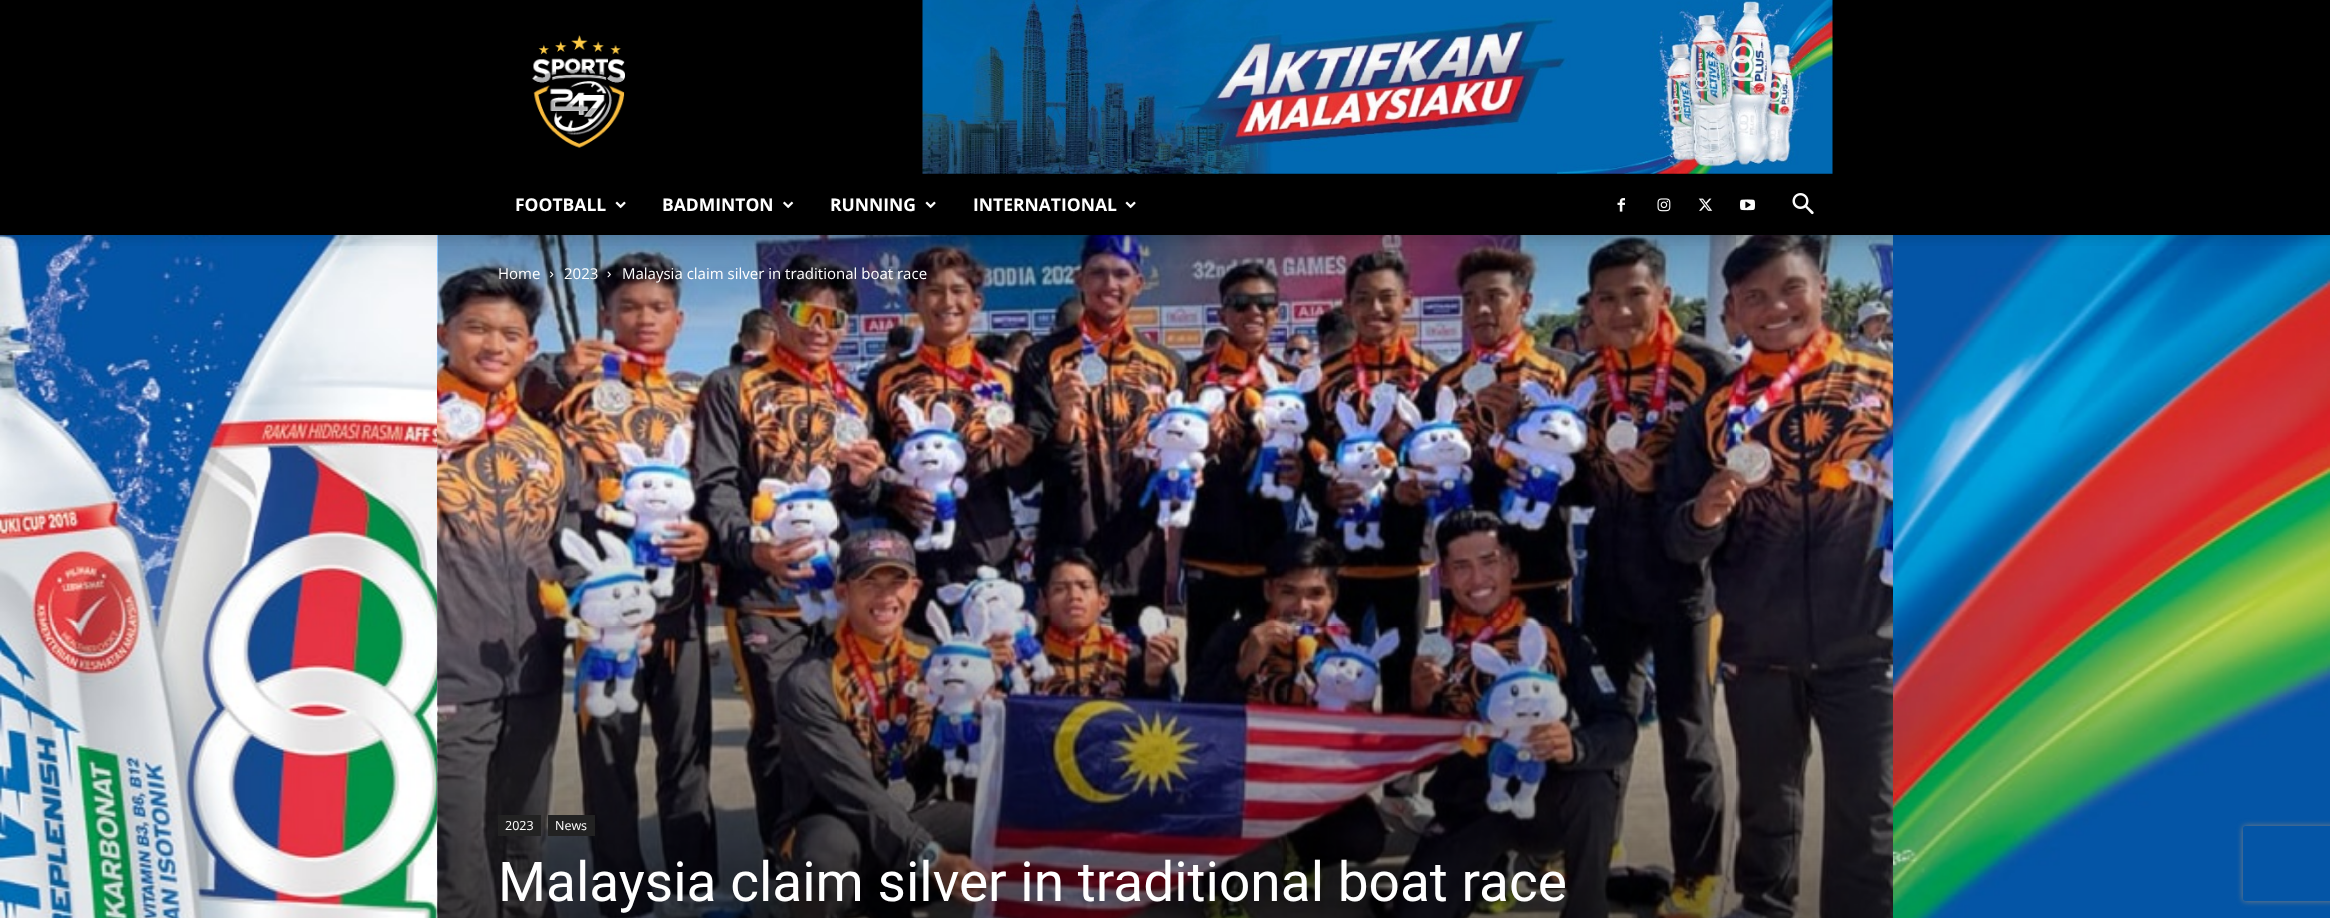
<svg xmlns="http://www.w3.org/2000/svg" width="2330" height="918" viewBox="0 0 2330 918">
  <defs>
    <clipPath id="clip1"><path d="M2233 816H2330V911H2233ZM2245.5 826H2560.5C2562 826 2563 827 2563 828.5V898.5C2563 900 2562 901 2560.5 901H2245.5C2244 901 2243 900 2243 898.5V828.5C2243 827 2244 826 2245.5 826Z" clip-rule="evenodd"/></clipPath>
  </defs>
  <rect width="100%" height="100%" fill="rgb(255,255,255)"/>
  <rect x="0" y="0" width="2330" height="235" fill="rgb(0,0,0)"/>
  <image x="532" y="35" width="93" height="113" href="pic1.png"/>
  <image x="922" y="0" width="911" height="174" href="pic2.png"/>
  <text x="515" y="211" font-family="Open Sans" font-size="17.5" font-weight="bold" fill="rgb(255,255,255)">FOOTBALL</text>
  <image x="615" y="201" width="11" height="8" href="pic3.png"/>
  <text x="662" y="211" font-family="Open Sans" font-size="17.5" font-weight="bold" fill="rgb(255,255,255)">BADMINTON</text>
  <image x="783" y="201" width="11" height="8" href="pic4.png"/>
  <text x="830" y="211" font-family="Open Sans" font-size="17.5" font-weight="bold" fill="rgb(255,255,255)">RUNNING</text>
  <image x="925" y="201" width="11" height="8" href="pic3.png"/>
  <text x="973" y="211" font-family="Open Sans" font-size="17.5" font-weight="bold" fill="rgb(255,255,255)">INTERNATIONAL</text>
  <image x="1125" y="201" width="11" height="8" href="pic3.png"/>
  <image x="1617" y="198" width="8" height="14" href="pic5.png"/>
  <image x="1657" y="198" width="14" height="14" href="pic6.png"/>
  <image x="1698" y="198" width="15" height="13" href="pic7.png"/>
  <image x="1740" y="199" width="15" height="12" href="pic8.png"/>
  <image x="1792" y="193" width="22" height="22" href="pic9.png"/>
  <image x="0" y="235" width="2330" height="683" href="pic14.png"/>
  <image x="437" y="235" width="1456" height="683" href="pic11.png"/>
  <image x="0" y="235" width="2330" height="11" href="pic10.png"/>
  <text x="498" y="279" font-family="Open Sans" font-size="15" fill="rgb(255,255,255)">Home</text>
  <image x="550" y="271" width="4" height="7" href="pic12.png"/>
  <text x="564" y="279" font-family="Open Sans" font-size="15" fill="rgb(255,255,255)">2023</text>
  <image x="607" y="271" width="4" height="7" href="pic13.png"/>
  <text x="622" y="279" font-family="Open Sans" font-size="15" fill="rgb(255,255,255)">Malaysia claim silver in traditional boat race</text>
  <rect x="498" y="815" width="43" height="21" fill="rgb(34,34,34)"/>
  <text x="505" y="830" font-family="Open Sans" font-size="12.5" fill="rgb(255,255,255)">2023</text>
  <rect x="548" y="815" width="47" height="21" fill="rgb(34,34,34)"/>
  <text x="555" y="830" font-family="Open Sans" font-size="12.5" fill="rgb(255,255,255)">News</text>
  <text x="498" y="901" font-family="Roboto" font-size="55" fill="rgb(255,255,255)">Malaysia claim silver in traditional boat race</text>
  <g clip-path="url(#clip1)">
    <rect x="2243" y="826" width="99" height="75" rx="2.5" fill="rgb(128,128,128)" filter="blur(3px)"/>
  </g>
</svg>
